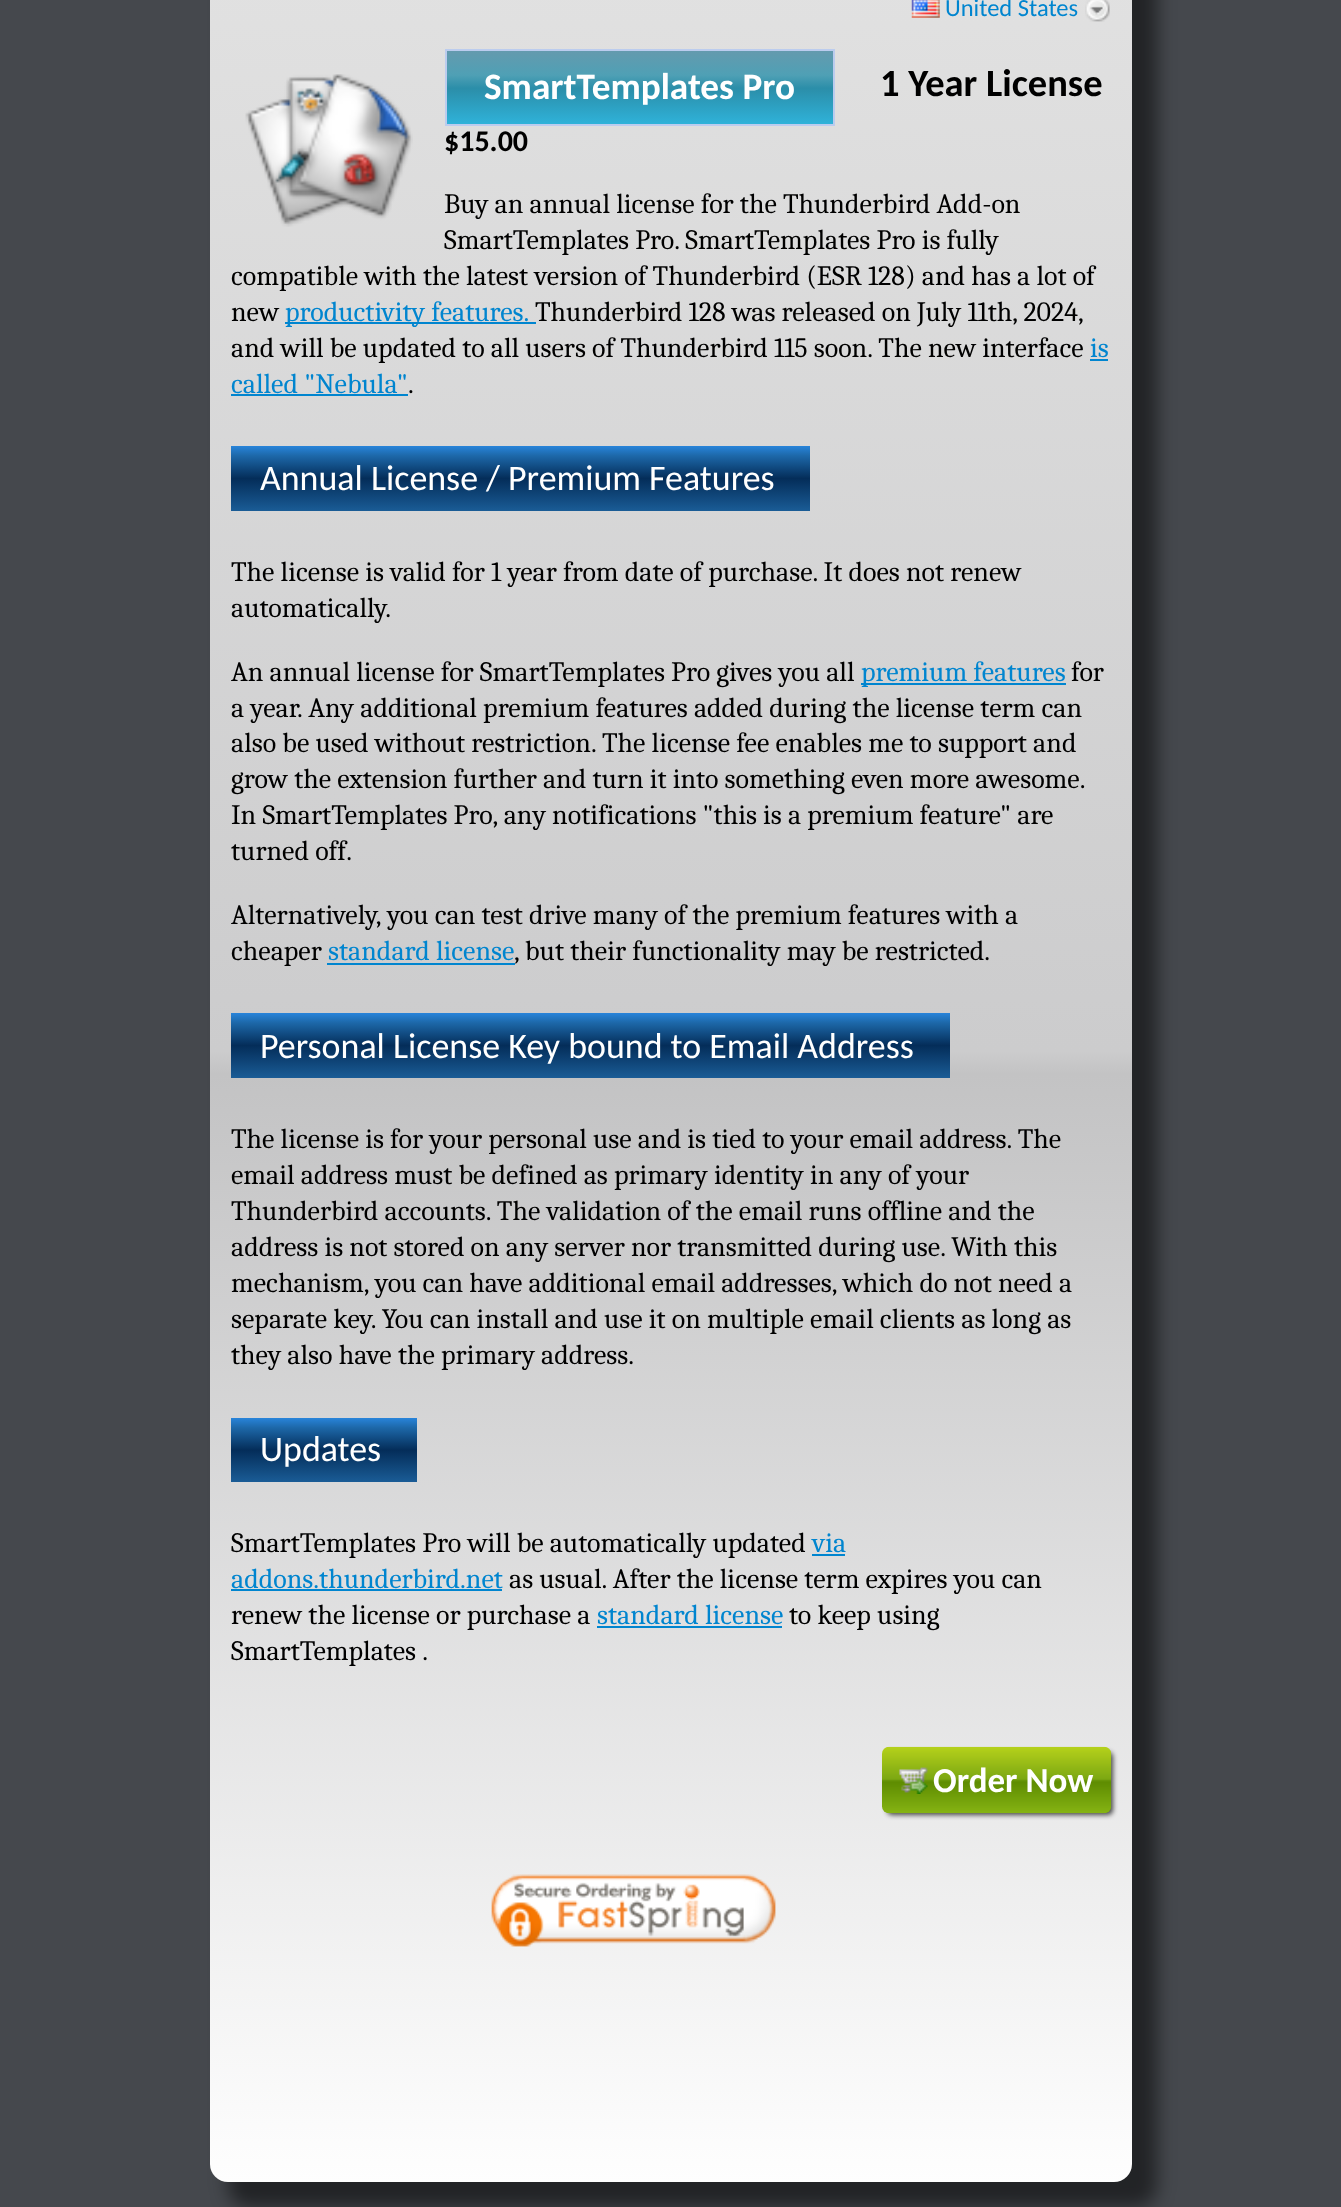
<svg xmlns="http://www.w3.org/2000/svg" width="1341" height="2207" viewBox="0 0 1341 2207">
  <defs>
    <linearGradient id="g1" gradientUnits="userSpaceOnUse" x1="671" y1="-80" x2="671" y2="2182"><stop offset="0" stop-color="rgb(226,226,226)"/><stop offset="0.5" stop-color="rgb(204,204,205)"/><stop offset="0.51" stop-color="rgb(195,195,196)"/><stop offset="1" stop-color="rgb(254,254,254)"/></linearGradient>
    <linearGradient id="g2" gradientUnits="userSpaceOnUse" x1="640" y1="51" x2="640" y2="124"><stop offset="0" stop-color="rgb(100,154,174)"/><stop offset="0.33" stop-color="rgb(79,160,181)"/><stop offset="0.51" stop-color="rgb(43,142,169)"/><stop offset="1" stop-color="rgb(47,178,217)"/></linearGradient>
    <linearGradient id="g3" gradientUnits="userSpaceOnUse" x1="521" y1="446" x2="521" y2="511"><stop offset="0" stop-color="rgb(40,132,218)"/><stop offset="0.15" stop-color="rgb(29,104,169)"/><stop offset="0.5" stop-color="rgb(4,45,89)"/><stop offset="1" stop-color="rgb(26,92,150)"/></linearGradient>
    <linearGradient id="g4" gradientUnits="userSpaceOnUse" x1="591" y1="1013" x2="591" y2="1078"><stop offset="0" stop-color="rgb(40,132,218)"/><stop offset="0.15" stop-color="rgb(29,104,169)"/><stop offset="0.5" stop-color="rgb(4,45,89)"/><stop offset="1" stop-color="rgb(26,92,150)"/></linearGradient>
    <linearGradient id="g5" gradientUnits="userSpaceOnUse" x1="324" y1="1418" x2="324" y2="1482"><stop offset="0" stop-color="rgb(40,132,218)"/><stop offset="0.15" stop-color="rgb(29,104,169)"/><stop offset="0.5" stop-color="rgb(4,45,89)"/><stop offset="1" stop-color="rgb(26,92,150)"/></linearGradient>
  </defs>
  <rect width="100%" height="100%" fill="rgb(69,72,77)"/>
  <rect x="228" y="-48" width="929" height="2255" rx="21" fill="rgba(0,0,0,0.5)" filter="blur(9px)"/>
  <rect x="210" y="-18" width="922" height="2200" rx="18" fill="url(#g1)"/>
  <image x="911" y="0" width="29" height="18" href="pic1.png"/>
  <text x="945" y="16" font-family="Carlito" font-size="24.5" fill="rgb(0,133,207)">United States</text>
  <image x="1085" y="0" width="25" height="22" href="pic2.png"/>
  <image x="245" y="74" width="168" height="153" href="pic3.png"/>
  <rect x="447" y="51" width="386" height="73" fill="url(#g2)"/>
  <rect x="446" y="50" width="388" height="75" fill="none" stroke="rgb(187,204,238)" stroke-width="2"/>
  <text x="484" y="99" font-family="Carlito" font-size="37.25" font-weight="bold" fill="rgb(255,255,255)">SmartTemplates Pro</text>
  <text x="880" y="96" font-family="Carlito" font-size="38.5" font-weight="bold" fill="rgb(0,0,0)">1 Year License</text>
  <text x="444" y="151" font-family="Carlito" font-size="30" font-weight="bold" fill="rgb(0,0,0)">$15.00</text>
  <g font-family="Caladea" font-size="28" fill="rgb(0,0,0)">
    <text>
      <tspan x="444" y="213">Buy an annual license for the Thunderbird Add-on</tspan>
      <tspan x="444" y="249">SmartTemplates Pro. SmartTemplates Pro is fully</tspan>
    </text>
    <text>
      <tspan x="231" y="285">compatible with the latest version of Thunderbird (ESR 128) and has a lot of</tspan>
      <tspan x="231" y="321">new</tspan>
    </text>
  </g>
  <rect x="285" y="322" width="251" height="2" fill="rgb(0,133,207)"/>
  <text x="285" y="321" font-family="Caladea" font-size="28" fill="rgb(0,133,207)">productivity features.</text>
  <g font-family="Caladea" font-size="28" fill="rgb(0,0,0)">
    <text x="535" y="321">Thunderbird 128 was released on July 11th, 2024,</text>
    <text x="231" y="357">and will be updated to all users of Thunderbird 115 soon. The new interface</text>
  </g>
  <text x="1090" y="357" font-family="Caladea" font-size="28" fill="rgb(0,133,207)">is</text>
  <rect x="1090" y="359" width="18" height="2" fill="rgb(0,133,207)"/>
  <text x="231" y="393" font-family="Caladea" font-size="28" fill="rgb(0,133,207)">called "Nebula"</text>
  <rect x="231" y="394" width="177" height="2" fill="rgb(0,133,207)"/>
  <text x="408" y="393" font-family="Caladea" font-size="28" fill="rgb(0,0,0)">.</text>
  <rect x="231" y="446" width="579" height="65" fill="url(#g3)"/>
  <text x="260" y="490" font-family="Carlito" font-size="35.9" fill="rgb(255,255,255)">Annual License / Premium Features</text>
  <g font-family="Caladea" font-size="28" fill="rgb(0,0,0)">
    <text>
      <tspan x="231" y="581">The license is valid for 1 year from date of purchase. It does not renew</tspan>
      <tspan x="231" y="617">automatically.</tspan>
    </text>
    <text x="231" y="681">An annual license for SmartTemplates Pro gives you all</text>
  </g>
  <rect x="861" y="683" width="205" height="2" fill="rgb(0,133,207)"/>
  <text x="861" y="681" font-family="Caladea" font-size="28" fill="rgb(0,133,207)">premium features</text>
  <g font-family="Caladea" font-size="28" fill="rgb(0,0,0)">
    <text x="1071" y="681">for</text>
    <text>
      <tspan x="231" y="717">a year. Any additional premium features added during the license term can</tspan>
      <tspan x="231" y="752">also be used without restriction. The license fee enables me to support and</tspan>
      <tspan x="231" y="788">grow the extension further and turn it into something even more awesome.</tspan>
      <tspan x="231" y="824">In SmartTemplates Pro, any notifications "this is a premium feature" are</tspan>
      <tspan x="231" y="860">turned off.</tspan>
    </text>
    <text>
      <tspan x="231" y="924">Alternatively, you can test drive many of the premium features with a</tspan>
      <tspan x="231" y="960">cheaper</tspan>
    </text>
  </g>
  <text x="328" y="960" font-family="Caladea" font-size="28" fill="rgb(0,133,207)">standard license</text>
  <rect x="327" y="963" width="188" height="2" fill="rgb(0,133,207)"/>
  <text x="514" y="960" font-family="Caladea" font-size="28" fill="rgb(0,0,0)">, but their functionality may be restricted.</text>
  <rect x="231" y="1013" width="719" height="65" fill="url(#g4)"/>
  <text x="260" y="1058" font-family="Carlito" font-size="35.9" fill="rgb(255,255,255)">Personal License Key bound to Email Address</text>
  <g font-family="Caladea" font-size="28" fill="rgb(0,0,0)">
    <text>
      <tspan x="231" y="1148">The license is for your personal use and is tied to your email address. The</tspan>
      <tspan x="231" y="1184">email address must be defined as primary identity in any of your</tspan>
      <tspan x="231" y="1220">Thunderbird accounts. The validation of the email runs offline and the</tspan>
      <tspan x="231" y="1256">address is not stored on any server nor transmitted during use. With this</tspan>
      <tspan x="231" y="1292">mechanism, you can have additional email addresses, which do not need a</tspan>
      <tspan x="231" y="1328">separate key. You can install and use it on multiple email clients as long as</tspan>
      <tspan x="231" y="1364">they also have the primary address.</tspan>
    </text>
  </g>
  <rect x="231" y="1418" width="186" height="64" fill="url(#g5)"/>
  <text x="260" y="1461" font-family="Carlito" font-size="35.9" fill="rgb(255,255,255)">Updates</text>
  <text x="231" y="1552" font-family="Caladea" font-size="28" fill="rgb(0,0,0)">SmartTemplates Pro will be automatically updated</text>
  <text x="812" y="1552" font-family="Caladea" font-size="28" fill="rgb(0,133,207)">via</text>
  <rect x="812" y="1554" width="33" height="2" fill="rgb(0,133,207)"/>
  <text x="231" y="1588" font-family="Caladea" font-size="28" fill="rgb(0,133,207)">addons.thunderbird.net</text>
  <rect x="231" y="1589" width="271" height="2" fill="rgb(0,133,207)"/>
  <g font-family="Caladea" font-size="28" fill="rgb(0,0,0)">
    <text x="509" y="1588">as usual. After the license term expires you can</text>
    <text x="231" y="1624">renew the license or purchase a</text>
  </g>
  <text x="597" y="1624" font-family="Caladea" font-size="28" fill="rgb(0,133,207)">standard license</text>
  <rect x="597" y="1626" width="185" height="2" fill="rgb(0,133,207)"/>
  <g font-family="Caladea" font-size="28" fill="rgb(0,0,0)">
    <text x="789" y="1624">to keep using</text>
    <text x="231" y="1660">SmartTemplates .</text>
  </g>
  <rect x="887" y="1752" width="226" height="63" rx="5" fill="rgba(0,0,0,0.7)" filter="blur(2.5px)"/>
  <image x="882" y="1746" width="230" height="68" href="pic4.png"/>
  <image x="899" y="1767" width="29" height="27" href="pic5.png"/>
  <text x="933" y="1792" font-family="Carlito" font-size="35" font-weight="bold" fill="rgb(255,255,255)">Order Now</text>
  <image x="491" y="1874" width="285" height="73" href="pic6.png"/>
</svg>
